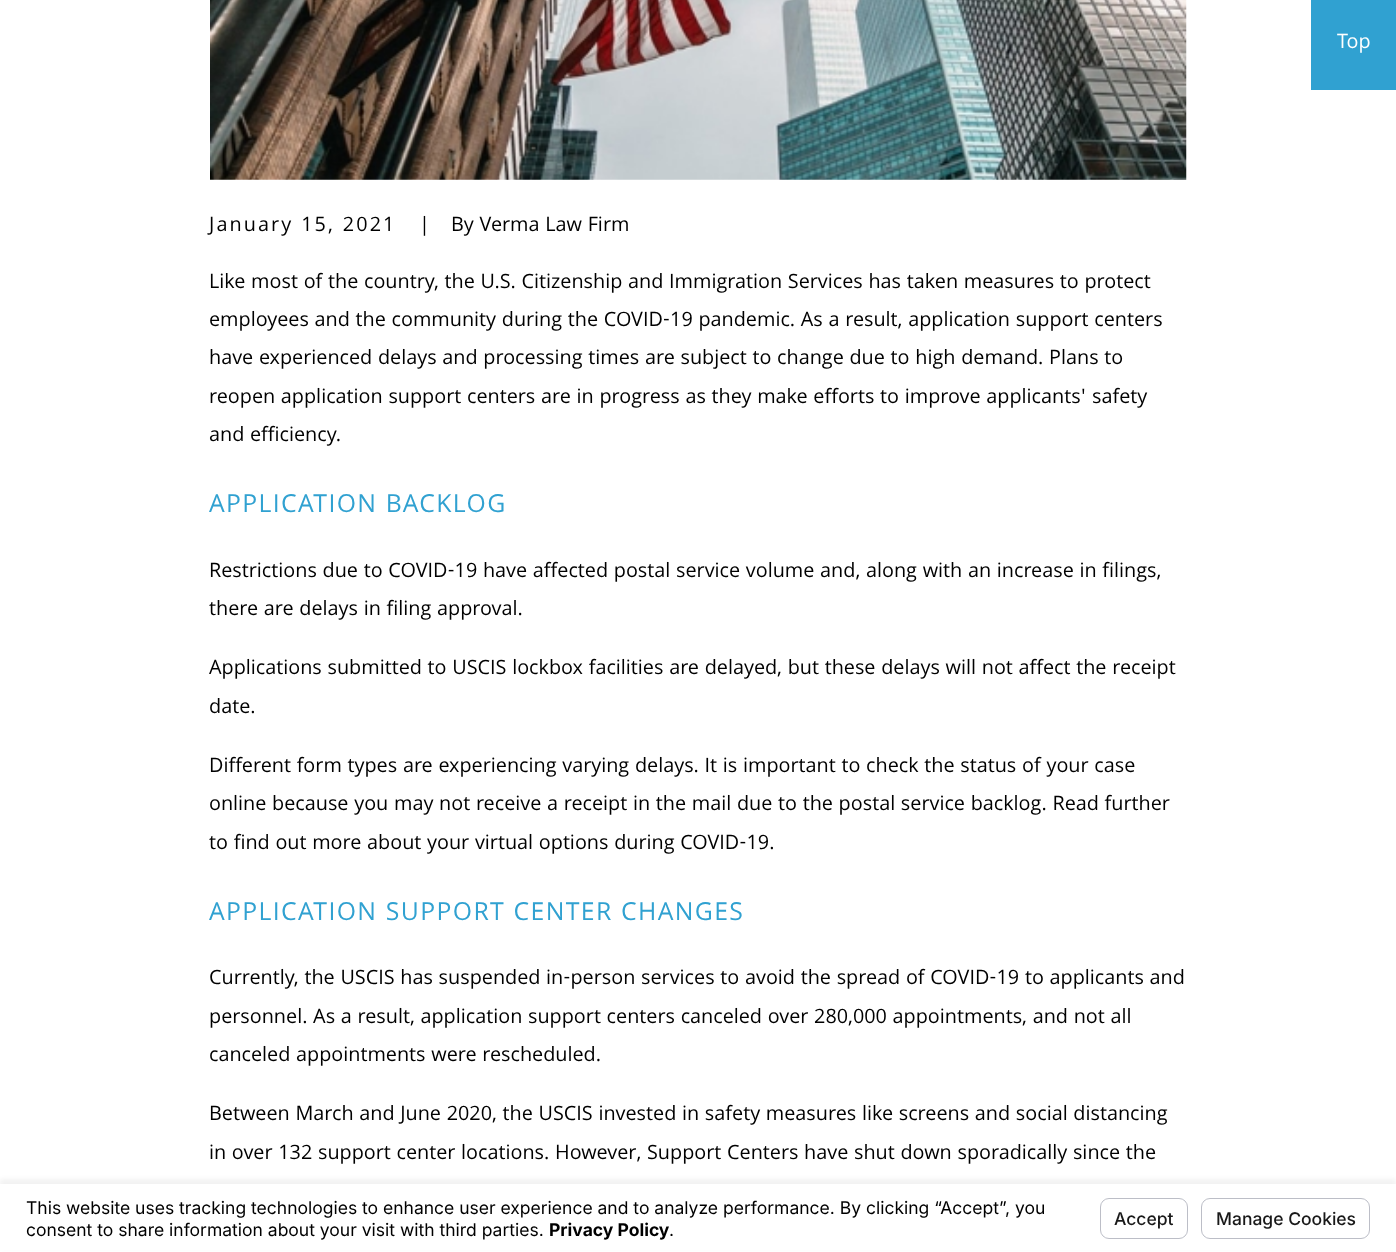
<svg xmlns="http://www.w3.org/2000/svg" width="1396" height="1252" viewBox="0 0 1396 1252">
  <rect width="100%" height="100%" fill="rgb(255,255,255)"/>
  <rect x="1311" y="0" width="85" height="90" fill="rgb(48,161,209)"/>
  <text x="1337" y="48" font-family="Khula" font-size="21.25" fill="rgb(255,255,255)">Top</text>
  <image x="210" y="0" width="977" height="180" href="pic1.png"/>
  <text x="209" y="231" font-family="Khula" font-size="21.25" letter-spacing="2.1" fill="rgb(0,0,0)">January 15, 2021</text>
  <g font-family="Khula" font-size="21.25" fill="rgb(0,0,0)">
    <text x="419" y="231">|</text>
    <text x="451" y="231">By Verma Law Firm</text>
    <text>
      <tspan x="209" y="288">Like most of the country, the U.S. Citizenship and Immigration Services has taken measures to protect</tspan>
      <tspan x="209" y="326">employees and the community during the COVID-19 pandemic. As a result, application support centers</tspan>
      <tspan x="209" y="364">have experienced delays and processing times are subject to change due to high demand. Plans to</tspan>
      <tspan x="209" y="403">reopen application support centers are in progress as they make efforts to improve applicants' safety</tspan>
      <tspan x="209" y="441">and efficiency.</tspan>
    </text>
  </g>
  <text x="209" y="512" font-family="Khula" font-size="26.6" letter-spacing="1.35" fill="rgb(48,161,209)">APPLICATION BACKLOG</text>
  <g font-family="Khula" font-size="21.25" fill="rgb(0,0,0)">
    <text>
      <tspan x="209" y="577">Restrictions due to COVID-19 have affected postal service volume and, along with an increase in filings,</tspan>
      <tspan x="209" y="615">there are delays in filing approval.</tspan>
    </text>
    <text>
      <tspan x="209" y="674">Applications submitted to USCIS lockbox facilities are delayed, but these delays will not affect the receipt</tspan>
      <tspan x="209" y="713">date.</tspan>
    </text>
    <text>
      <tspan x="209" y="772">Different form types are experiencing varying delays. It is important to check the status of your case</tspan>
      <tspan x="209" y="810">online because you may not receive a receipt in the mail due to the postal service backlog. Read further</tspan>
      <tspan x="209" y="849">to find out more about your virtual options during COVID-19.</tspan>
    </text>
  </g>
  <text x="209" y="920" font-family="Khula" font-size="26.6" letter-spacing="1.35" fill="rgb(48,161,209)">APPLICATION SUPPORT CENTER CHANGES</text>
  <g font-family="Khula" font-size="21.25" fill="rgb(0,0,0)">
    <text>
      <tspan x="209" y="984">Currently, the USCIS has suspended in-person services to avoid the spread of COVID-19 to applicants and</tspan>
      <tspan x="209" y="1023">personnel. As a result, application support centers canceled over 280,000 appointments, and not all</tspan>
      <tspan x="209" y="1061">canceled appointments were rescheduled.</tspan>
    </text>
    <text>
      <tspan x="209" y="1120">Between March and June 2020, the USCIS invested in safety measures like screens and social distancing</tspan>
      <tspan x="209" y="1159">in over 132 support center locations. However, Support Centers have shut down sporadically since the</tspan>
    </text>
  </g>
  <rect x="0" y="1179" width="1396" height="69" fill="rgba(0,0,0,0.05)" filter="blur(2px)"/>
  <rect x="0" y="1184" width="1396" height="66" fill="rgb(255,255,255)"/>
  <g font-family="Inter" font-size="17.5" fill="rgb(0,0,0)">
    <text>
      <tspan x="26" y="1214">This website uses tracking technologies to enhance user experience and to analyze performance. By clicking “Accept”, you</tspan>
      <tspan x="26" y="1236">consent to share information about your visit with third parties.</tspan>
    </text>
  </g>
  <text x="549" y="1236" font-family="Inter" font-size="17.5" font-weight="bold" fill="rgb(0,0,0)">Privacy Policy</text>
  <text x="669" y="1236" font-family="Inter" font-size="17.5" fill="rgb(0,0,0)">.</text>
  <rect x="1100.5" y="1198.5" width="87" height="40" rx="8.5" fill="none" stroke="rgb(188,190,199)"/>
  <text x="1114" y="1225" font-family="Inter" font-size="17.5" font-weight="500" fill="rgb(25,25,25)">Accept</text>
  <rect x="1201.5" y="1198.5" width="168" height="40" rx="8.5" fill="none" stroke="rgb(188,190,199)"/>
  <text x="1216" y="1225" font-family="Inter" font-size="17.5" font-weight="500" fill="rgb(25,25,25)">Manage Cookies</text>
</svg>
